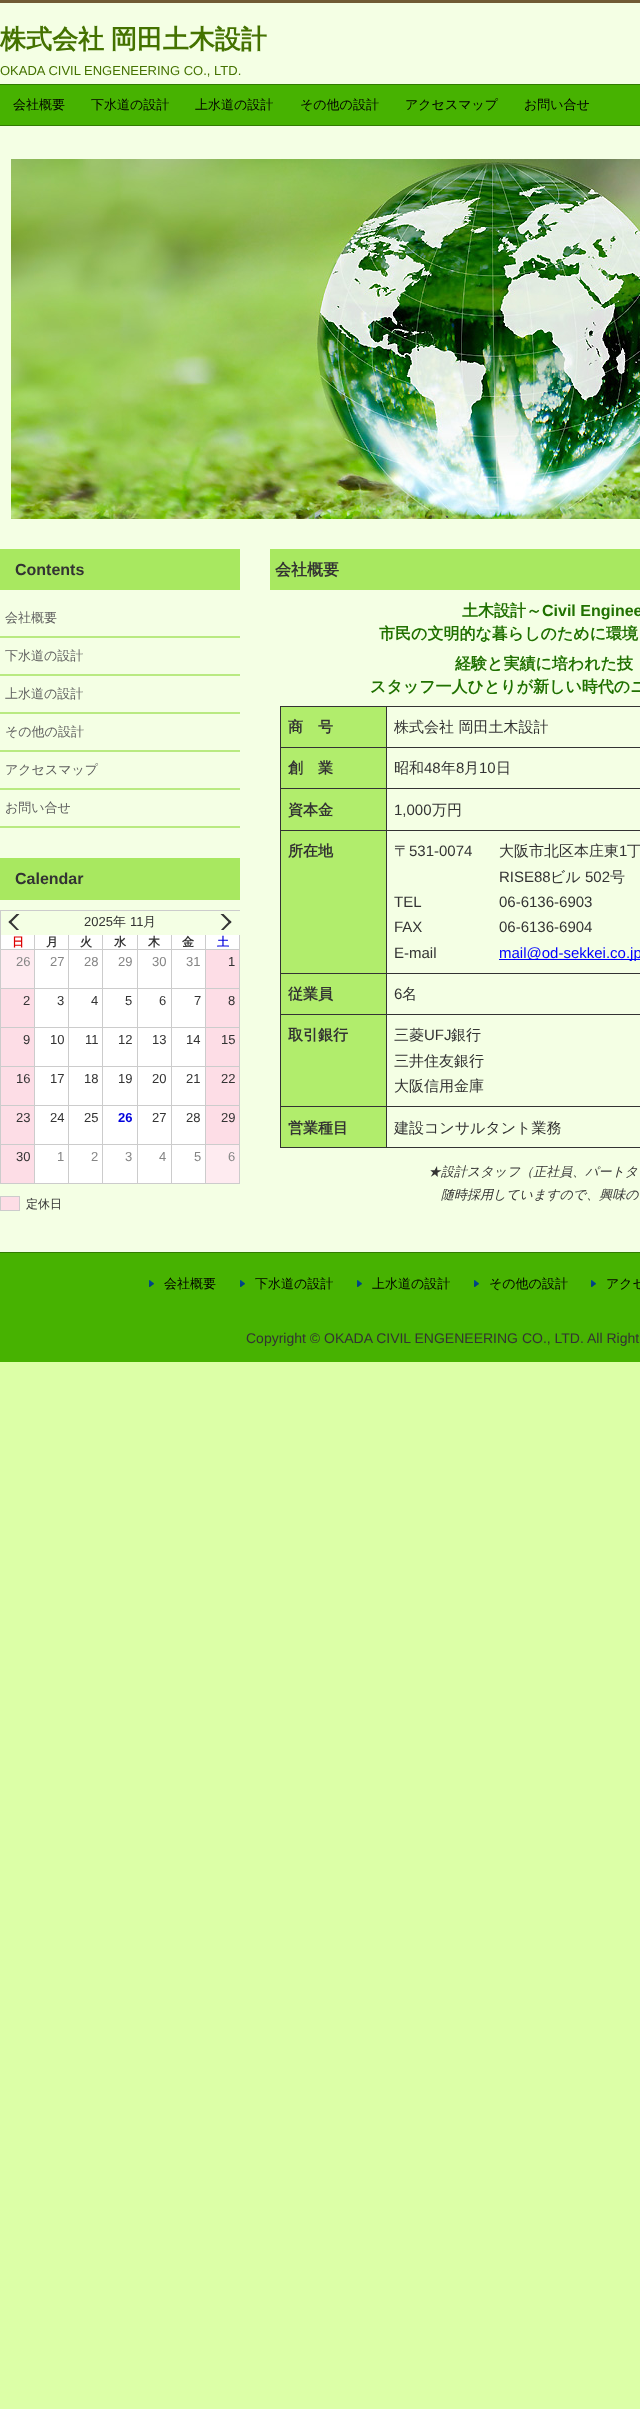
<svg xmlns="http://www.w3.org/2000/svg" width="640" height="2409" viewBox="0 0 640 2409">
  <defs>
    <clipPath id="clip1"><rect x="0" y="914" width="38" height="16"/></clipPath>
    <clipPath id="clip2"><rect x="202" y="914" width="38" height="16"/></clipPath>
  </defs>
  <rect width="100%" height="100%" fill="rgb(220,255,167)"/>
  <rect x="0" y="3" width="640" height="1249" fill="rgb(244,255,228)"/>
  <rect x="0" y="0" width="640" height="3" fill="rgb(112,91,53)"/>
  <text x="0" y="48" word-spacing="-1" font-family="WenQuanYi Zen Hei" font-size="26" font-weight="bold" fill="rgb(68,114,0)">株式会社 岡田土木設計</text>
  <text x="0" y="75" font-family="Liberation Sans" font-size="13" fill="rgb(68,114,0)">OKADA CIVIL ENGENEERING CO., LTD.</text>
  <rect x="0" y="85" width="640" height="40" fill="rgb(71,178,1)"/>
  <rect x="0" y="84" width="640" height="1" fill="rgb(49,124,0)"/>
  <rect x="0" y="125" width="640" height="1" fill="rgb(49,124,0)"/>
  <g font-family="WenQuanYi Zen Hei" font-size="13" font-weight="500" fill="rgb(0,0,0)">
    <text x="13" y="109">会社概要</text>
    <text x="91" y="109">下水道の設計</text>
    <text x="195" y="109">上水道の設計</text>
    <text x="300" y="109">その他の設計</text>
    <text x="405" y="109">アクセスマップ</text>
    <text x="524" y="109">お問い合せ</text>
  </g>
  <image x="11" y="159" width="629" height="360" href="pic1.png"/>
  <rect x="0" y="549" width="240" height="41" fill="rgb(168,232,96)"/>
  <text x="15" y="575" font-family="Liberation Sans" font-size="16" font-weight="bold" fill="rgb(51,51,51)">Contents</text>
  <rect x="0" y="636" width="240" height="2" fill="rgb(185,234,129)"/>
  <text x="5" y="622" font-family="WenQuanYi Zen Hei" font-size="13" font-weight="500" fill="rgb(94,94,94)">会社概要</text>
  <rect x="0" y="674" width="240" height="2" fill="rgb(185,234,129)"/>
  <text x="5" y="660" font-family="WenQuanYi Zen Hei" font-size="13" font-weight="500" fill="rgb(94,94,94)">下水道の設計</text>
  <rect x="0" y="712" width="240" height="2" fill="rgb(185,234,129)"/>
  <text x="5" y="698" font-family="WenQuanYi Zen Hei" font-size="13" font-weight="500" fill="rgb(94,94,94)">上水道の設計</text>
  <rect x="0" y="750" width="240" height="2" fill="rgb(185,234,129)"/>
  <text x="5" y="736" font-family="WenQuanYi Zen Hei" font-size="13" font-weight="500" fill="rgb(94,94,94)">その他の設計</text>
  <rect x="0" y="788" width="240" height="2" fill="rgb(185,234,129)"/>
  <text x="5" y="774" font-family="WenQuanYi Zen Hei" font-size="13" font-weight="500" fill="rgb(94,94,94)">アクセスマップ</text>
  <rect x="0" y="826" width="240" height="2" fill="rgb(185,234,129)"/>
  <text x="5" y="812" font-family="WenQuanYi Zen Hei" font-size="13" font-weight="500" fill="rgb(94,94,94)">お問い合せ</text>
  <rect x="0" y="858" width="240" height="42" fill="rgb(168,232,96)"/>
  <text x="15" y="884" font-family="Liberation Sans" font-size="16" font-weight="bold" fill="rgb(51,51,51)">Calendar</text>
  <rect x="0" y="910" width="240" height="1" fill="rgb(204,204,204)"/>
  <rect x="0" y="1183" width="240" height="1" fill="rgb(204,204,204)"/>
  <rect x="0" y="910" width="1" height="274" fill="rgb(204,204,204)"/>
  <g clip-path="url(#clip1)">
    <path d="M10 920.5L20.5 931.5L19 932.5L8.5 922Z" fill="rgb(51,51,51)"/>
    <path d="M19 911.5L20.5 913L10 923.5L8.5 922Z" fill="rgb(51,51,51)"/>
  </g>
  <text x="84" y="926" font-family="Liberation Sans" font-size="13" fill="rgb(51,51,51)">2025</text>
  <text x="113" y="926" font-family="WenQuanYi Zen Hei" font-size="13" font-weight="500" fill="rgb(51,51,51)">年</text>
  <text x="130" y="926" font-family="Liberation Sans" font-size="13" fill="rgb(51,51,51)">11</text>
  <text x="143" y="926" font-family="WenQuanYi Zen Hei" font-size="13" font-weight="500" fill="rgb(51,51,51)">月</text>
  <g clip-path="url(#clip2)">
    <path d="M221 911.5L231.5 922L230 923.5L219.5 913Z" fill="rgb(51,51,51)"/>
    <path d="M230 920.5L231.5 922L221 932.5L219.5 931.5Z" fill="rgb(51,51,51)"/>
  </g>
  <rect x="1" y="935" width="33" height="14" fill="rgb(255,255,255)"/>
  <rect x="34" y="935" width="1" height="14" fill="rgb(204,204,204)"/>
  <text x="12" y="946" font-family="WenQuanYi Zen Hei" font-size="12" font-weight="bold" fill="rgb(221,0,0)">日</text>
  <rect x="35" y="935" width="33" height="14" fill="rgb(255,255,255)"/>
  <rect x="68" y="935" width="1" height="14" fill="rgb(204,204,204)"/>
  <text x="46" y="946" font-family="WenQuanYi Zen Hei" font-size="12" font-weight="bold" fill="rgb(51,51,51)">月</text>
  <rect x="69" y="935" width="33" height="14" fill="rgb(255,255,255)"/>
  <rect x="102" y="935" width="1" height="14" fill="rgb(204,204,204)"/>
  <text x="80" y="946" font-family="WenQuanYi Zen Hei" font-size="12" font-weight="bold" fill="rgb(51,51,51)">火</text>
  <rect x="103" y="935" width="34" height="14" fill="rgb(255,255,255)"/>
  <rect x="137" y="935" width="1" height="14" fill="rgb(204,204,204)"/>
  <text x="114" y="946" font-family="WenQuanYi Zen Hei" font-size="12" font-weight="bold" fill="rgb(51,51,51)">水</text>
  <rect x="138" y="935" width="33" height="14" fill="rgb(255,255,255)"/>
  <rect x="171" y="935" width="1" height="14" fill="rgb(204,204,204)"/>
  <text x="148" y="946" font-family="WenQuanYi Zen Hei" font-size="12" font-weight="bold" fill="rgb(51,51,51)">木</text>
  <rect x="172" y="935" width="33" height="14" fill="rgb(255,255,255)"/>
  <rect x="205" y="935" width="1" height="14" fill="rgb(204,204,204)"/>
  <text x="182" y="946" font-family="WenQuanYi Zen Hei" font-size="12" font-weight="bold" fill="rgb(51,51,51)">金</text>
  <rect x="206" y="935" width="33" height="14" fill="rgb(255,255,255)"/>
  <rect x="239" y="935" width="1" height="14" fill="rgb(204,204,204)"/>
  <text x="217" y="946" font-family="WenQuanYi Zen Hei" font-size="12" font-weight="bold" fill="rgb(0,0,221)">土</text>
  <rect x="35" y="950" width="170" height="38" fill="rgb(255,255,255)"/>
  <rect x="1" y="949" width="239" height="1" fill="rgb(204,204,204)"/>
  <rect x="34" y="949" width="1" height="39" fill="rgb(204,204,204)"/>
  <rect x="1" y="950" width="33" height="38" fill="rgb(254,235,240)"/>
  <text x="16" y="966" font-family="Liberation Sans" font-size="13" fill="rgb(133,133,133)">26</text>
  <rect x="68" y="949" width="1" height="39" fill="rgb(204,204,204)"/>
  <text x="50" y="966" font-family="Liberation Sans" font-size="13" fill="rgb(133,133,133)">27</text>
  <rect x="102" y="949" width="1" height="39" fill="rgb(204,204,204)"/>
  <text x="84" y="966" font-family="Liberation Sans" font-size="13" fill="rgb(133,133,133)">28</text>
  <rect x="137" y="949" width="1" height="39" fill="rgb(204,204,204)"/>
  <text x="118" y="966" font-family="Liberation Sans" font-size="13" fill="rgb(133,133,133)">29</text>
  <rect x="171" y="949" width="1" height="39" fill="rgb(204,204,204)"/>
  <text x="152" y="966" font-family="Liberation Sans" font-size="13" fill="rgb(133,133,133)">30</text>
  <rect x="205" y="949" width="1" height="39" fill="rgb(204,204,204)"/>
  <text x="186" y="966" font-family="Liberation Sans" font-size="13" fill="rgb(133,133,133)">31</text>
  <rect x="239" y="949" width="1" height="39" fill="rgb(204,204,204)"/>
  <rect x="206" y="950" width="33" height="38" fill="rgb(253,221,230)"/>
  <text x="228" y="966" font-family="Liberation Sans" font-size="13" fill="rgb(51,51,51)">1</text>
  <rect x="35" y="989" width="170" height="38" fill="rgb(255,255,255)"/>
  <rect x="1" y="988" width="239" height="1" fill="rgb(204,204,204)"/>
  <rect x="34" y="988" width="1" height="39" fill="rgb(204,204,204)"/>
  <rect x="1" y="989" width="33" height="38" fill="rgb(253,221,230)"/>
  <text x="23" y="1005" font-family="Liberation Sans" font-size="13" fill="rgb(51,51,51)">2</text>
  <rect x="68" y="988" width="1" height="39" fill="rgb(204,204,204)"/>
  <text x="57" y="1005" font-family="Liberation Sans" font-size="13" fill="rgb(51,51,51)">3</text>
  <rect x="102" y="988" width="1" height="39" fill="rgb(204,204,204)"/>
  <text x="91" y="1005" font-family="Liberation Sans" font-size="13" fill="rgb(51,51,51)">4</text>
  <rect x="137" y="988" width="1" height="39" fill="rgb(204,204,204)"/>
  <text x="125" y="1005" font-family="Liberation Sans" font-size="13" fill="rgb(51,51,51)">5</text>
  <rect x="171" y="988" width="1" height="39" fill="rgb(204,204,204)"/>
  <text x="159" y="1005" font-family="Liberation Sans" font-size="13" fill="rgb(51,51,51)">6</text>
  <rect x="205" y="988" width="1" height="39" fill="rgb(204,204,204)"/>
  <text x="194" y="1005" font-family="Liberation Sans" font-size="13" fill="rgb(51,51,51)">7</text>
  <rect x="239" y="988" width="1" height="39" fill="rgb(204,204,204)"/>
  <rect x="206" y="989" width="33" height="38" fill="rgb(253,221,230)"/>
  <text x="228" y="1005" font-family="Liberation Sans" font-size="13" fill="rgb(51,51,51)">8</text>
  <rect x="35" y="1028" width="170" height="38" fill="rgb(255,255,255)"/>
  <rect x="1" y="1027" width="239" height="1" fill="rgb(204,204,204)"/>
  <rect x="34" y="1027" width="1" height="39" fill="rgb(204,204,204)"/>
  <rect x="1" y="1028" width="33" height="38" fill="rgb(253,221,230)"/>
  <text x="23" y="1044" font-family="Liberation Sans" font-size="13" fill="rgb(51,51,51)">9</text>
  <rect x="68" y="1027" width="1" height="39" fill="rgb(204,204,204)"/>
  <text x="50" y="1044" font-family="Liberation Sans" font-size="13" fill="rgb(51,51,51)">10</text>
  <rect x="102" y="1027" width="1" height="39" fill="rgb(204,204,204)"/>
  <text x="85" y="1044" font-family="Liberation Sans" font-size="13" fill="rgb(51,51,51)">11</text>
  <rect x="137" y="1027" width="1" height="39" fill="rgb(204,204,204)"/>
  <text x="118" y="1044" font-family="Liberation Sans" font-size="13" fill="rgb(51,51,51)">12</text>
  <rect x="171" y="1027" width="1" height="39" fill="rgb(204,204,204)"/>
  <text x="152" y="1044" font-family="Liberation Sans" font-size="13" fill="rgb(51,51,51)">13</text>
  <rect x="205" y="1027" width="1" height="39" fill="rgb(204,204,204)"/>
  <text x="186" y="1044" font-family="Liberation Sans" font-size="13" fill="rgb(51,51,51)">14</text>
  <rect x="239" y="1027" width="1" height="39" fill="rgb(204,204,204)"/>
  <rect x="206" y="1028" width="33" height="38" fill="rgb(253,221,230)"/>
  <text x="221" y="1044" font-family="Liberation Sans" font-size="13" fill="rgb(51,51,51)">15</text>
  <rect x="35" y="1067" width="170" height="38" fill="rgb(255,255,255)"/>
  <rect x="1" y="1066" width="239" height="1" fill="rgb(204,204,204)"/>
  <rect x="34" y="1066" width="1" height="39" fill="rgb(204,204,204)"/>
  <rect x="1" y="1067" width="33" height="38" fill="rgb(253,221,230)"/>
  <text x="16" y="1083" font-family="Liberation Sans" font-size="13" fill="rgb(51,51,51)">16</text>
  <rect x="68" y="1066" width="1" height="39" fill="rgb(204,204,204)"/>
  <text x="50" y="1083" font-family="Liberation Sans" font-size="13" fill="rgb(51,51,51)">17</text>
  <rect x="102" y="1066" width="1" height="39" fill="rgb(204,204,204)"/>
  <text x="84" y="1083" font-family="Liberation Sans" font-size="13" fill="rgb(51,51,51)">18</text>
  <rect x="137" y="1066" width="1" height="39" fill="rgb(204,204,204)"/>
  <text x="118" y="1083" font-family="Liberation Sans" font-size="13" fill="rgb(51,51,51)">19</text>
  <rect x="171" y="1066" width="1" height="39" fill="rgb(204,204,204)"/>
  <text x="152" y="1083" font-family="Liberation Sans" font-size="13" fill="rgb(51,51,51)">20</text>
  <rect x="205" y="1066" width="1" height="39" fill="rgb(204,204,204)"/>
  <text x="186" y="1083" font-family="Liberation Sans" font-size="13" fill="rgb(51,51,51)">21</text>
  <rect x="239" y="1066" width="1" height="39" fill="rgb(204,204,204)"/>
  <rect x="206" y="1067" width="33" height="38" fill="rgb(253,221,230)"/>
  <text x="221" y="1083" font-family="Liberation Sans" font-size="13" fill="rgb(51,51,51)">22</text>
  <rect x="35" y="1106" width="170" height="38" fill="rgb(255,255,255)"/>
  <rect x="1" y="1105" width="239" height="1" fill="rgb(204,204,204)"/>
  <rect x="34" y="1105" width="1" height="39" fill="rgb(204,204,204)"/>
  <rect x="1" y="1106" width="33" height="38" fill="rgb(253,221,230)"/>
  <text x="16" y="1122" font-family="Liberation Sans" font-size="13" fill="rgb(51,51,51)">23</text>
  <rect x="68" y="1105" width="1" height="39" fill="rgb(204,204,204)"/>
  <text x="50" y="1122" font-family="Liberation Sans" font-size="13" fill="rgb(51,51,51)">24</text>
  <rect x="102" y="1105" width="1" height="39" fill="rgb(204,204,204)"/>
  <text x="84" y="1122" font-family="Liberation Sans" font-size="13" fill="rgb(51,51,51)">25</text>
  <rect x="137" y="1105" width="1" height="39" fill="rgb(204,204,204)"/>
  <text x="118" y="1122" font-family="Liberation Sans" font-size="13" font-weight="bold" fill="rgb(0,0,221)">26</text>
  <rect x="171" y="1105" width="1" height="39" fill="rgb(204,204,204)"/>
  <text x="152" y="1122" font-family="Liberation Sans" font-size="13" fill="rgb(51,51,51)">27</text>
  <rect x="205" y="1105" width="1" height="39" fill="rgb(204,204,204)"/>
  <text x="186" y="1122" font-family="Liberation Sans" font-size="13" fill="rgb(51,51,51)">28</text>
  <rect x="239" y="1105" width="1" height="39" fill="rgb(204,204,204)"/>
  <rect x="206" y="1106" width="33" height="38" fill="rgb(253,221,230)"/>
  <text x="221" y="1122" font-family="Liberation Sans" font-size="13" fill="rgb(51,51,51)">29</text>
  <rect x="35" y="1145" width="170" height="38" fill="rgb(255,255,255)"/>
  <rect x="1" y="1144" width="239" height="1" fill="rgb(204,204,204)"/>
  <rect x="34" y="1144" width="1" height="39" fill="rgb(204,204,204)"/>
  <rect x="1" y="1145" width="33" height="38" fill="rgb(253,221,230)"/>
  <text x="16" y="1161" font-family="Liberation Sans" font-size="13" fill="rgb(51,51,51)">30</text>
  <rect x="68" y="1144" width="1" height="39" fill="rgb(204,204,204)"/>
  <text x="57" y="1161" font-family="Liberation Sans" font-size="13" fill="rgb(133,133,133)">1</text>
  <rect x="102" y="1144" width="1" height="39" fill="rgb(204,204,204)"/>
  <text x="91" y="1161" font-family="Liberation Sans" font-size="13" fill="rgb(133,133,133)">2</text>
  <rect x="137" y="1144" width="1" height="39" fill="rgb(204,204,204)"/>
  <text x="125" y="1161" font-family="Liberation Sans" font-size="13" fill="rgb(133,133,133)">3</text>
  <rect x="171" y="1144" width="1" height="39" fill="rgb(204,204,204)"/>
  <text x="159" y="1161" font-family="Liberation Sans" font-size="13" fill="rgb(133,133,133)">4</text>
  <rect x="205" y="1144" width="1" height="39" fill="rgb(204,204,204)"/>
  <text x="194" y="1161" font-family="Liberation Sans" font-size="13" fill="rgb(133,133,133)">5</text>
  <rect x="239" y="1144" width="1" height="39" fill="rgb(204,204,204)"/>
  <rect x="206" y="1145" width="33" height="38" fill="rgb(254,235,240)"/>
  <text x="228" y="1161" font-family="Liberation Sans" font-size="13" fill="rgb(133,133,133)">6</text>
  <rect x="0.5" y="1196.5" width="19" height="14" fill="rgb(253,221,230)" stroke="rgb(204,204,204)"/>
  <text x="26" y="1208" font-family="WenQuanYi Zen Hei" font-size="12" font-weight="500" fill="rgb(51,51,51)">定休日</text>
  <rect x="270" y="549" width="370" height="41" fill="rgb(168,232,96)"/>
  <text x="275" y="575" font-family="WenQuanYi Zen Hei" font-size="16" font-weight="bold" fill="rgb(51,51,51)">会社概要</text>
  <text x="462" y="616" font-family="WenQuanYi Zen Hei" font-size="16" font-weight="bold" fill="rgb(32,113,0)">土木設計～</text>
  <text x="542" y="616" font-family="Liberation Sans" font-size="16" font-weight="bold" fill="rgb(32,113,0)">Civil Enginee</text>
  <g font-family="WenQuanYi Zen Hei" font-size="16" font-weight="bold" fill="rgb(32,113,0)">
    <text x="379" y="639">市民の文明的な暮らしのために環境</text>
    <text x="455" y="669">経験と実績に培われた技</text>
    <text x="370" y="692">スタッフ一人ひとりが新しい時代のニ</text>
  </g>
  <rect x="281" y="707" width="105" height="40" fill="rgb(177,237,108)"/>
  <rect x="386" y="706" width="254" height="1" fill="rgb(51,51,51)"/>
  <rect x="386" y="747" width="254" height="1" fill="rgb(51,51,51)"/>
  <rect x="386" y="788" width="254" height="1" fill="rgb(51,51,51)"/>
  <rect x="386" y="830" width="254" height="1" fill="rgb(51,51,51)"/>
  <rect x="386" y="973" width="254" height="1" fill="rgb(51,51,51)"/>
  <rect x="386" y="1014" width="254" height="1" fill="rgb(51,51,51)"/>
  <rect x="386" y="1106" width="254" height="1" fill="rgb(51,51,51)"/>
  <rect x="386" y="1147" width="254" height="1" fill="rgb(51,51,51)"/>
  <rect x="386" y="1106" width="1" height="42" fill="rgb(51,51,51)"/>
  <rect x="280" y="1106" width="107" height="1" fill="rgb(51,51,51)"/>
  <rect x="386" y="1014" width="1" height="93" fill="rgb(51,51,51)"/>
  <rect x="280" y="1014" width="107" height="1" fill="rgb(51,51,51)"/>
  <rect x="386" y="973" width="1" height="42" fill="rgb(51,51,51)"/>
  <rect x="280" y="973" width="107" height="1" fill="rgb(51,51,51)"/>
  <rect x="386" y="830" width="1" height="144" fill="rgb(51,51,51)"/>
  <rect x="280" y="830" width="107" height="1" fill="rgb(51,51,51)"/>
  <rect x="386" y="788" width="1" height="43" fill="rgb(51,51,51)"/>
  <rect x="280" y="788" width="107" height="1" fill="rgb(51,51,51)"/>
  <rect x="386" y="747" width="1" height="42" fill="rgb(51,51,51)"/>
  <rect x="280" y="747" width="107" height="1" fill="rgb(51,51,51)"/>
  <rect x="386" y="706" width="1" height="42" fill="rgb(51,51,51)"/>
  <rect x="280" y="706" width="107" height="1" fill="rgb(51,51,51)"/>
  <rect x="280" y="1147" width="107" height="1" fill="rgb(51,51,51)"/>
  <rect x="280" y="1106" width="1" height="42" fill="rgb(51,51,51)"/>
  <rect x="280" y="1014" width="1" height="93" fill="rgb(51,51,51)"/>
  <rect x="280" y="973" width="1" height="42" fill="rgb(51,51,51)"/>
  <rect x="280" y="830" width="1" height="144" fill="rgb(51,51,51)"/>
  <rect x="280" y="788" width="1" height="43" fill="rgb(51,51,51)"/>
  <rect x="280" y="747" width="1" height="42" fill="rgb(51,51,51)"/>
  <rect x="280" y="706" width="1" height="42" fill="rgb(51,51,51)"/>
  <text x="288" y="732" font-family="WenQuanYi Zen Hei" font-size="15" font-weight="bold" fill="rgb(51,51,51)">商　号</text>
  <text x="394" y="732" font-family="WenQuanYi Zen Hei" font-size="15" font-weight="500" fill="rgb(51,51,51)">株式会社 岡田土木設計</text>
  <rect x="281" y="748" width="105" height="40" fill="rgb(177,237,108)"/>
  <text x="288" y="773" font-family="WenQuanYi Zen Hei" font-size="15" font-weight="bold" fill="rgb(51,51,51)">創　業</text>
  <text x="394" y="773" font-family="WenQuanYi Zen Hei" font-size="15" font-weight="500" fill="rgb(51,51,51)">昭和</text>
  <text x="424" y="773" font-family="Liberation Sans" font-size="15" fill="rgb(51,51,51)">48</text>
  <text x="441" y="773" font-family="WenQuanYi Zen Hei" font-size="15" font-weight="500" fill="rgb(51,51,51)">年</text>
  <text x="456" y="773" font-family="Liberation Sans" font-size="15" fill="rgb(51,51,51)">8</text>
  <text x="464" y="773" font-family="WenQuanYi Zen Hei" font-size="15" font-weight="500" fill="rgb(51,51,51)">月</text>
  <text x="479" y="773" font-family="Liberation Sans" font-size="15" fill="rgb(51,51,51)">10</text>
  <text x="496" y="773" font-family="WenQuanYi Zen Hei" font-size="15" font-weight="500" fill="rgb(51,51,51)">日</text>
  <rect x="281" y="789" width="105" height="41" fill="rgb(177,237,108)"/>
  <text x="288" y="815" font-family="WenQuanYi Zen Hei" font-size="15" font-weight="bold" fill="rgb(51,51,51)">資本金</text>
  <text x="394" y="815" font-family="Liberation Sans" font-size="15" fill="rgb(51,51,51)">1,000</text>
  <text x="432" y="815" font-family="WenQuanYi Zen Hei" font-size="15" font-weight="500" fill="rgb(51,51,51)">万円</text>
  <rect x="281" y="831" width="105" height="142" fill="rgb(177,237,108)"/>
  <text x="288" y="856" font-family="WenQuanYi Zen Hei" font-size="15" font-weight="bold" fill="rgb(51,51,51)">所在地</text>
  <text x="394" y="856" font-family="WenQuanYi Zen Hei" font-size="15" font-weight="500" fill="rgb(51,51,51)">〒</text>
  <text x="409" y="856" font-family="Liberation Sans" font-size="15" fill="rgb(51,51,51)">531-0074</text>
  <text x="499" y="856" font-family="WenQuanYi Zen Hei" font-size="15" font-weight="500" fill="rgb(51,51,51)">大阪市北区本庄東</text>
  <text x="619" y="856" font-family="Liberation Sans" font-size="15" fill="rgb(51,51,51)">1</text>
  <text x="627" y="856" font-family="WenQuanYi Zen Hei" font-size="15" font-weight="500" fill="rgb(51,51,51)">丁</text>
  <text x="499" y="882" font-family="Liberation Sans" font-size="15" fill="rgb(51,51,51)">RISE88</text>
  <text x="550" y="882" font-family="WenQuanYi Zen Hei" font-size="15" font-weight="500" fill="rgb(51,51,51)">ビル</text>
  <text x="585" y="882" font-family="Liberation Sans" font-size="15" fill="rgb(51,51,51)">502</text>
  <text x="610" y="882" font-family="WenQuanYi Zen Hei" font-size="15" font-weight="500" fill="rgb(51,51,51)">号</text>
  <g font-family="Liberation Sans" font-size="15" fill="rgb(51,51,51)">
    <text x="394" y="907">TEL</text>
    <text x="499" y="907">06-6136-6903</text>
    <text x="394" y="932">FAX</text>
    <text x="499" y="932">06-6136-6904</text>
    <text x="394" y="958">E-mail</text>
  </g>
  <rect x="499" y="959" width="141" height="1" fill="rgb(0,0,255)"/>
  <text x="499" y="958" font-family="Liberation Sans" font-size="15" fill="rgb(0,0,255)">mail@od-sekkei.co.jp</text>
  <rect x="281" y="974" width="105" height="40" fill="rgb(177,237,108)"/>
  <text x="288" y="999" font-family="WenQuanYi Zen Hei" font-size="15" font-weight="bold" fill="rgb(51,51,51)">従業員</text>
  <text x="394" y="999" font-family="Liberation Sans" font-size="15" fill="rgb(51,51,51)">6</text>
  <text x="402" y="999" font-family="WenQuanYi Zen Hei" font-size="15" font-weight="500" fill="rgb(51,51,51)">名</text>
  <rect x="281" y="1015" width="105" height="91" fill="rgb(177,237,108)"/>
  <text x="288" y="1040" font-family="WenQuanYi Zen Hei" font-size="15" font-weight="bold" fill="rgb(51,51,51)">取引銀行</text>
  <text x="394" y="1040" font-family="WenQuanYi Zen Hei" font-size="15" font-weight="500" fill="rgb(51,51,51)">三菱</text>
  <text x="424" y="1040" font-family="Liberation Sans" font-size="15" fill="rgb(51,51,51)">UFJ</text>
  <g font-family="WenQuanYi Zen Hei" font-size="15" font-weight="500" fill="rgb(51,51,51)">
    <text x="451" y="1040">銀行</text>
    <text>
      <tspan x="394" y="1066">三井住友銀行</tspan>
      <tspan x="394" y="1091">大阪信用金庫</tspan>
    </text>
  </g>
  <rect x="281" y="1107" width="105" height="40" fill="rgb(177,237,108)"/>
  <text x="288" y="1133" font-family="WenQuanYi Zen Hei" font-size="15" font-weight="bold" fill="rgb(51,51,51)">営業種目</text>
  <text x="394" y="1133" font-family="WenQuanYi Zen Hei" font-size="15" font-weight="500" fill="rgb(51,51,51)">建設コンサルタント業務</text>
  <g font-family="WenQuanYi Zen Hei" font-size="13" font-weight="500" font-style="italic" fill="rgb(51,51,51)">
    <text x="428" y="1176">★設計スタッフ（正社員、パートタ</text>
    <text x="441" y="1199">随時採用していますので、興味の</text>
  </g>
  <rect x="0" y="1253" width="640" height="109" fill="rgb(71,178,1)"/>
  <rect x="0" y="1252" width="640" height="1" fill="rgb(49,124,0)"/>
  <image x="149" y="1280" width="5" height="7" href="pic2.png"/>
  <text x="164" y="1288" font-family="WenQuanYi Zen Hei" font-size="13" font-weight="500" fill="rgb(0,0,0)">会社概要</text>
  <image x="240" y="1280" width="5" height="7" href="pic2.png"/>
  <text x="255" y="1288" font-family="WenQuanYi Zen Hei" font-size="13" font-weight="500" fill="rgb(0,0,0)">下水道の設計</text>
  <image x="357" y="1280" width="5" height="7" href="pic2.png"/>
  <text x="372" y="1288" font-family="WenQuanYi Zen Hei" font-size="13" font-weight="500" fill="rgb(0,0,0)">上水道の設計</text>
  <image x="474" y="1280" width="5" height="7" href="pic2.png"/>
  <text x="489" y="1288" font-family="WenQuanYi Zen Hei" font-size="13" font-weight="500" fill="rgb(0,0,0)">その他の設計</text>
  <image x="591" y="1280" width="5" height="7" href="pic2.png"/>
  <text x="606" y="1288" font-family="WenQuanYi Zen Hei" font-size="13" font-weight="500" fill="rgb(0,0,0)">アクセ</text>
  <text x="246" y="1343" font-family="Liberation Sans" font-size="14" fill="rgb(51,51,51)">Copyright © OKADA CIVIL ENGENEERING CO., LTD. All Right</text>
</svg>
